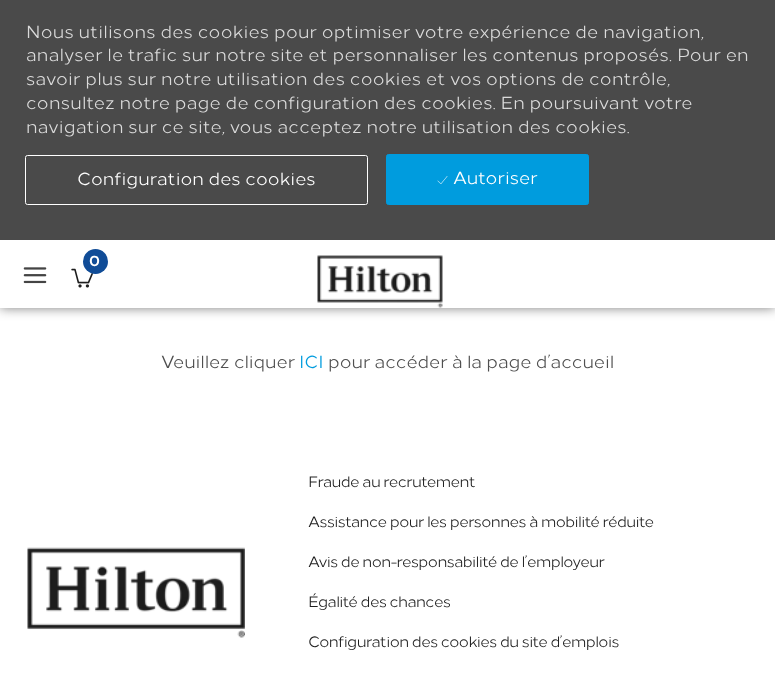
<svg xmlns="http://www.w3.org/2000/svg" width="775" height="678" viewBox="0 0 775 678">
  <rect width="100%" height="100%" fill="rgb(255,255,255)"/>
  <rect x="0" y="240" width="775" height="68" fill="rgba(0,0,0,0.5)" filter="blur(6px)"/>
  <rect x="0" y="0" width="775" height="240" fill="rgb(74,74,74)"/>
  <g font-family="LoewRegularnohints" font-size="17.5" letter-spacing="0.25" fill="rgb(219,219,219)">
    <text>
      <tspan x="26" y="38">Nous utilisons des cookies pour optimiser votre expérience de navigation,</tspan>
      <tspan x="26" y="61">analyser le trafic sur notre site et personnaliser les contenus proposés. Pour en</tspan>
      <tspan x="26" y="85">savoir plus sur notre utilisation des cookies et vos options de contrôle,</tspan>
      <tspan x="26" y="109">consultez notre page de configuration des cookies. En poursuivant votre</tspan>
      <tspan x="26" y="133">navigation sur ce site, vous acceptez notre utilisation des cookies.</tspan>
    </text>
  </g>
  <rect x="25.5" y="155.5" width="342" height="49" rx="2" fill="none" stroke="rgb(255,255,255)"/>
  <text x="77" y="185" font-family="LoewRegularnohints" font-size="17.5" letter-spacing="0.1" fill="rgb(255,255,255)">Configuration des cookies</text>
  <rect x="386.5" y="154.5" width="202" height="50" rx="2" fill="rgb(0,156,222)" stroke="rgb(0,156,222)"/>
  <image x="437" y="176" width="11" height="8" href="pic1.png"/>
  <text x="453" y="184" font-family="LoewRegularnohints" font-size="17.5" letter-spacing="0.1" fill="rgb(255,255,255)">Autoriser</text>
  <rect x="0" y="240" width="775" height="68" fill="rgb(255,255,255)"/>
  <image x="71" y="268" width="22" height="20" href="pic2.png"/>
  <circle cx="95.5" cy="261.5" r="12.5" fill="rgb(16,76,151)"/>
  <text x="89" y="266" font-family="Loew" font-size="15" font-weight="bold" fill="rgb(255,255,255)">0</text>
  <image x="23" y="267" width="24" height="17" href="pic3.png"/>
  <image x="317" y="255" width="126" height="53" href="pic4.png"/>
  <text x="161" y="368" font-family="LoewRegularnohints" font-size="17.5" fill="rgb(79,79,79)">Veuillez cliquer</text>
  <text x="299" y="368" font-family="LoewRegularnohints" font-size="17.5" fill="rgb(0,156,222)">ICI</text>
  <text x="328" y="368" font-family="LoewRegularnohints" font-size="17.5" fill="rgb(79,79,79)">pour accéder à la page d’accueil</text>
  <image x="27" y="547" width="218" height="91" href="pic5.png"/>
  <g font-family="LoewRegularnohints" font-size="15" letter-spacing="-0.55" fill="rgb(29,29,29)">
    <text x="308" y="487">Fraude au recrutement</text>
    <text x="308" y="527">Assistance pour les personnes à mobilité réduite</text>
    <text x="308" y="567">Avis de non-responsabilité de l’employeur</text>
    <text x="308" y="607">Égalité des chances</text>
    <text x="308" y="647">Configuration des cookies du site d’emplois</text>
  </g>
</svg>
